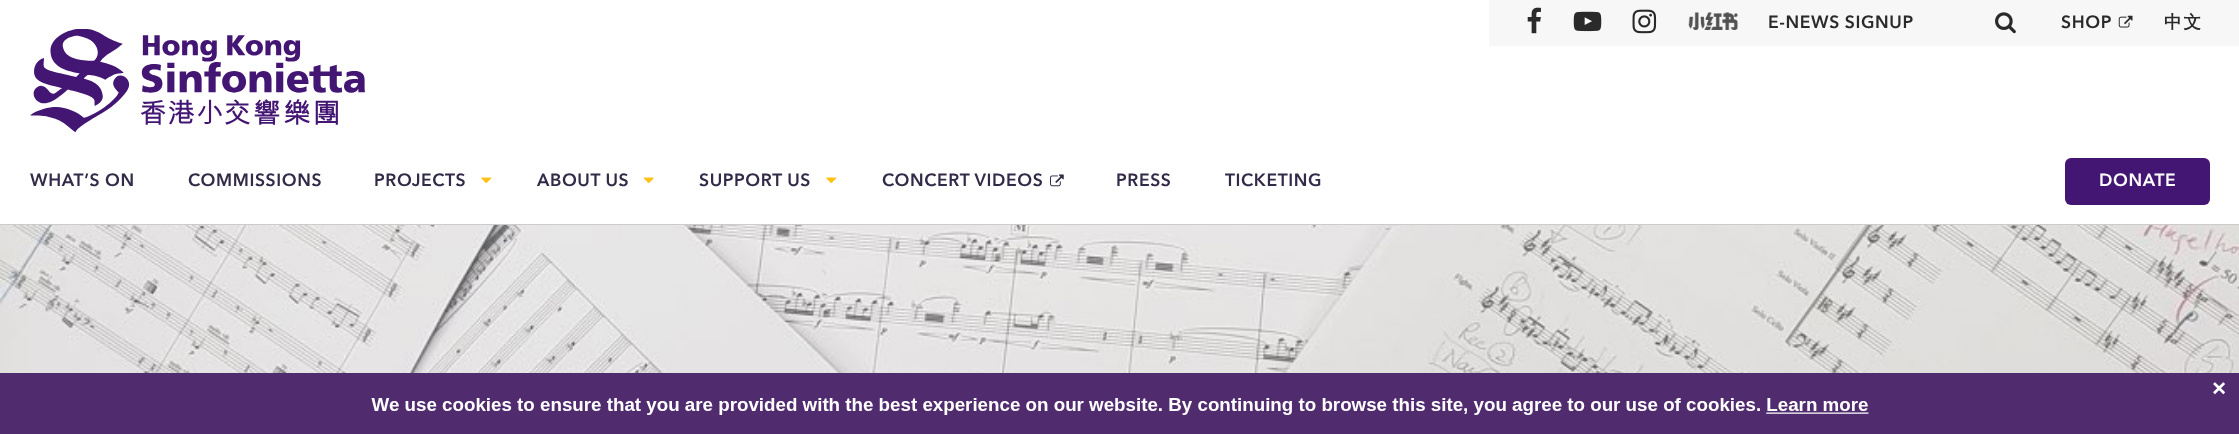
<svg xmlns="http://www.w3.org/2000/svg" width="2239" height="434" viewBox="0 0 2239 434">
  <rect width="100%" height="100%" fill="rgb(255,255,255)"/>
  <rect x="1489" y="0" width="750" height="46" fill="rgb(247,247,247)"/>
  <image x="1527" y="7" width="14" height="27" href="pic1.png"/>
  <image x="1573" y="11" width="29" height="21" href="pic2.png"/>
  <image x="1632" y="9" width="25" height="25" href="pic3.png"/>
  <image x="1688" y="12" width="50" height="18" href="pic4.png"/>
  <text x="1768" y="28" font-family="'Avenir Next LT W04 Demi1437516'" font-size="17.5" font-weight="bold" letter-spacing="0.6" fill="rgb(42,42,42)">E-NEWS SIGNUP</text>
  <image x="1995" y="12" width="21" height="22" href="pic5.png"/>
  <text x="2061" y="28" font-family="'Avenir Next LT W04 Demi1437516'" font-size="17.5" font-weight="bold" letter-spacing="0.6" fill="rgb(42,42,42)">SHOP</text>
  <image x="2118" y="15" width="15" height="13" href="pic6.png"/>
  <text x="2164" y="28" font-family="WenQuanYi Zen Hei" font-size="17.5" font-weight="bold" letter-spacing="2" fill="rgb(42,42,42)">中文</text>
  <rect x="0" y="224" width="2239" height="1" fill="rgb(204,204,204)"/>
  <image x="30" y="29" width="335" height="104" href="pic7.png"/>
  <g font-family="'Avenir Next LT W04 Demi1437516'" font-size="17.5" font-weight="bold" letter-spacing="0.6" fill="rgb(51,42,71)">
    <text x="30" y="186">WHAT’S ON</text>
    <text x="188" y="186">COMMISSIONS</text>
    <text x="374" y="186">PROJECTS</text>
  </g>
  <image x="481" y="177" width="11" height="7" href="pic8.png"/>
  <text x="537" y="186" font-family="'Avenir Next LT W04 Demi1437516'" font-size="17.5" font-weight="bold" letter-spacing="0.6" fill="rgb(51,42,71)">ABOUT US</text>
  <image x="643" y="177" width="11" height="7" href="pic9.png"/>
  <text x="699" y="186" font-family="'Avenir Next LT W04 Demi1437516'" font-size="17.5" font-weight="bold" letter-spacing="0.6" fill="rgb(51,42,71)">SUPPORT US</text>
  <image x="826" y="177" width="11" height="7" href="pic8.png"/>
  <text x="882" y="186" font-family="'Avenir Next LT W04 Demi1437516'" font-size="17.5" font-weight="bold" letter-spacing="0.6" fill="rgb(51,42,71)">CONCERT VIDEOS</text>
  <image x="1050" y="174" width="14" height="13" href="pic10.png"/>
  <g font-family="'Avenir Next LT W04 Demi1437516'" font-size="17.5" font-weight="bold" letter-spacing="0.6" fill="rgb(51,42,71)">
    <text x="1116" y="186">PRESS</text>
    <text x="1225" y="186">TICKETING</text>
  </g>
  <rect x="2065" y="158" width="145" height="47" rx="6" fill="rgb(68,22,116)"/>
  <text x="2099" y="186" font-family="'Avenir Next LT W04 Demi1437516'" font-size="17.5" font-weight="bold" letter-spacing="0.6" fill="rgb(255,255,255)">DONATE</text>
  <image x="0" y="225" width="2239" height="148" href="pic11.png"/>
  <image x="0" y="373" width="2239" height="61" href="pic12.png"/>
</svg>
